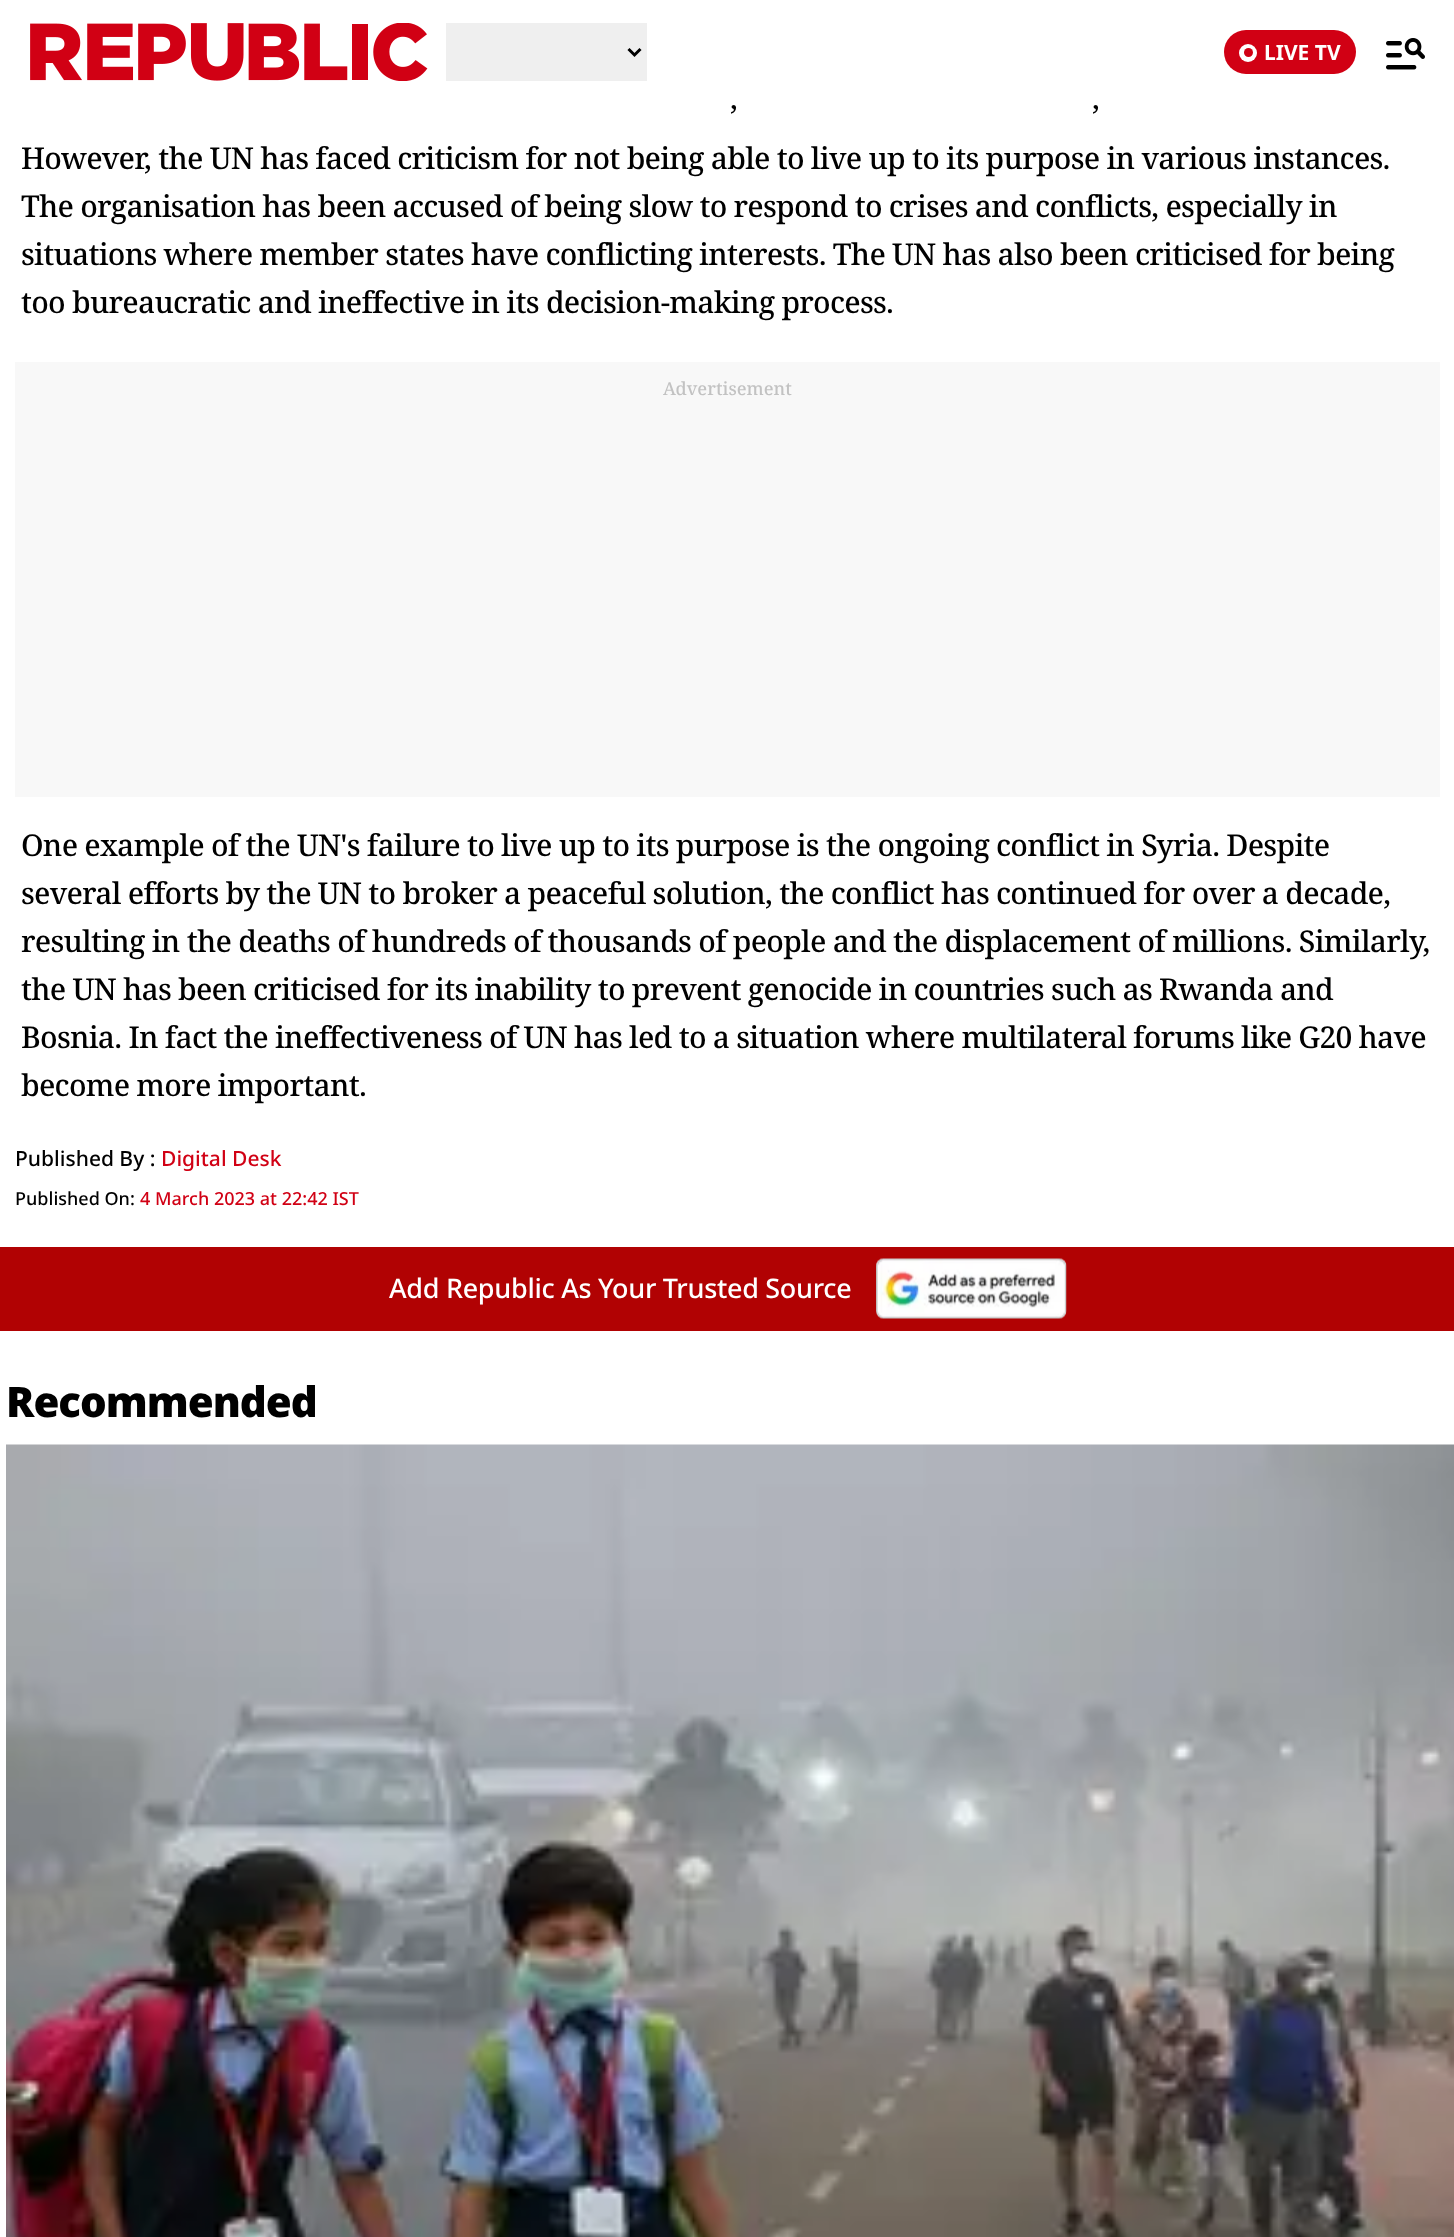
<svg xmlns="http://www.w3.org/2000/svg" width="1454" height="2237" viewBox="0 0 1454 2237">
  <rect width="100%" height="100%" fill="rgb(255,255,255)"/>
  <image x="30" y="23" width="398" height="58" href="pic1.png"/>
  <rect x="446" y="23" width="201" height="58" fill="rgb(239,239,239)"/>
  <path d="M628.5 49L634.5 55L640.5 49" fill="none" stroke="rgb(0,0,0)" stroke-width="3"/>
  <rect x="1224" y="30" width="132" height="44" rx="22" fill="rgb(209,0,20)"/>
  <circle cx="1248" cy="53" r="9" fill="rgb(255,255,255)"/>
  <circle cx="1248.5" cy="52.5" r="4.5" fill="rgb(209,0,20)"/>
  <text x="1264" y="60" font-family="Noto Sans" font-size="21" font-weight="bold" fill="rgb(255,255,255)">LIVE TV</text>
  <image x="1386" y="38" width="39" height="32" href="pic2.png"/>
  <g font-family="Noto Serif" font-size="30" font-weight="500" letter-spacing="-0.75" fill="rgb(0,0,0)">
    <text x="730" y="109">,</text>
    <text x="1092" y="109">,</text>
    <text>
      <tspan x="21" y="169">However, the UN has faced criticism for not being able to live up to its purpose in various instances.</tspan>
      <tspan x="21" y="217">The organisation has been accused of being slow to respond to crises and conflicts, especially in</tspan>
      <tspan x="21" y="265">situations where member states have conflicting interests. The UN has also been criticised for being</tspan>
      <tspan x="21" y="313">too bureaucratic and ineffective in its decision-making process.</tspan>
    </text>
  </g>
  <rect x="15" y="362" width="1425" height="435" fill="rgb(248,248,248)"/>
  <text x="663" y="395" font-family="Noto Serif" font-size="18" font-weight="500" fill="rgb(194,194,194)">Advertisement</text>
  <g font-family="Noto Serif" font-size="30" font-weight="500" letter-spacing="-0.75" fill="rgb(0,0,0)">
    <text>
      <tspan x="21" y="856">One example of the UN's failure to live up to its purpose is the ongoing conflict in Syria. Despite</tspan>
      <tspan x="21" y="904">several efforts by the UN to broker a peaceful solution, the conflict has continued for over a decade,</tspan>
      <tspan x="21" y="952">resulting in the deaths of hundreds of thousands of people and the displacement of millions. Similarly,</tspan>
      <tspan x="21" y="1000">the UN has been criticised for its inability to prevent genocide in countries such as Rwanda and</tspan>
      <tspan x="21" y="1048">Bosnia. In fact the ineffectiveness of UN has led to a situation where multilateral forums like G20 have</tspan>
      <tspan x="21" y="1096">become more important.</tspan>
    </text>
  </g>
  <text x="15" y="1166" font-family="Noto Sans" font-size="21" font-weight="500" fill="rgb(0,0,0)">Published By :</text>
  <text x="161" y="1166" font-family="Noto Sans" font-size="21" font-weight="500" fill="rgb(209,0,20)">Digital Desk</text>
  <text x="15" y="1205" font-family="Noto Sans" font-size="18" font-weight="500" fill="rgb(0,0,0)">Published On:</text>
  <text x="140" y="1205" font-family="Noto Sans" font-size="18" font-weight="500" fill="rgb(209,0,20)">4 March 2023 at 22:42 IST</text>
  <rect x="0" y="1247" width="1454" height="84" fill="rgb(177,2,3)"/>
  <text x="389" y="1298" font-family="Noto Sans" font-size="27" font-weight="500" letter-spacing="-0.3" fill="rgb(255,255,255)">Add Republic As Your Trusted Source</text>
  <image x="876" y="1258" width="191" height="61" href="pic3.png"/>
  <text x="6" y="1417" font-family="Noto Sans" font-size="42" font-weight="900" letter-spacing="-1" fill="rgb(0,0,0)">Recommended</text>
  <image x="6" y="1444" width="1448" height="793" href="pic4.png"/>
</svg>
